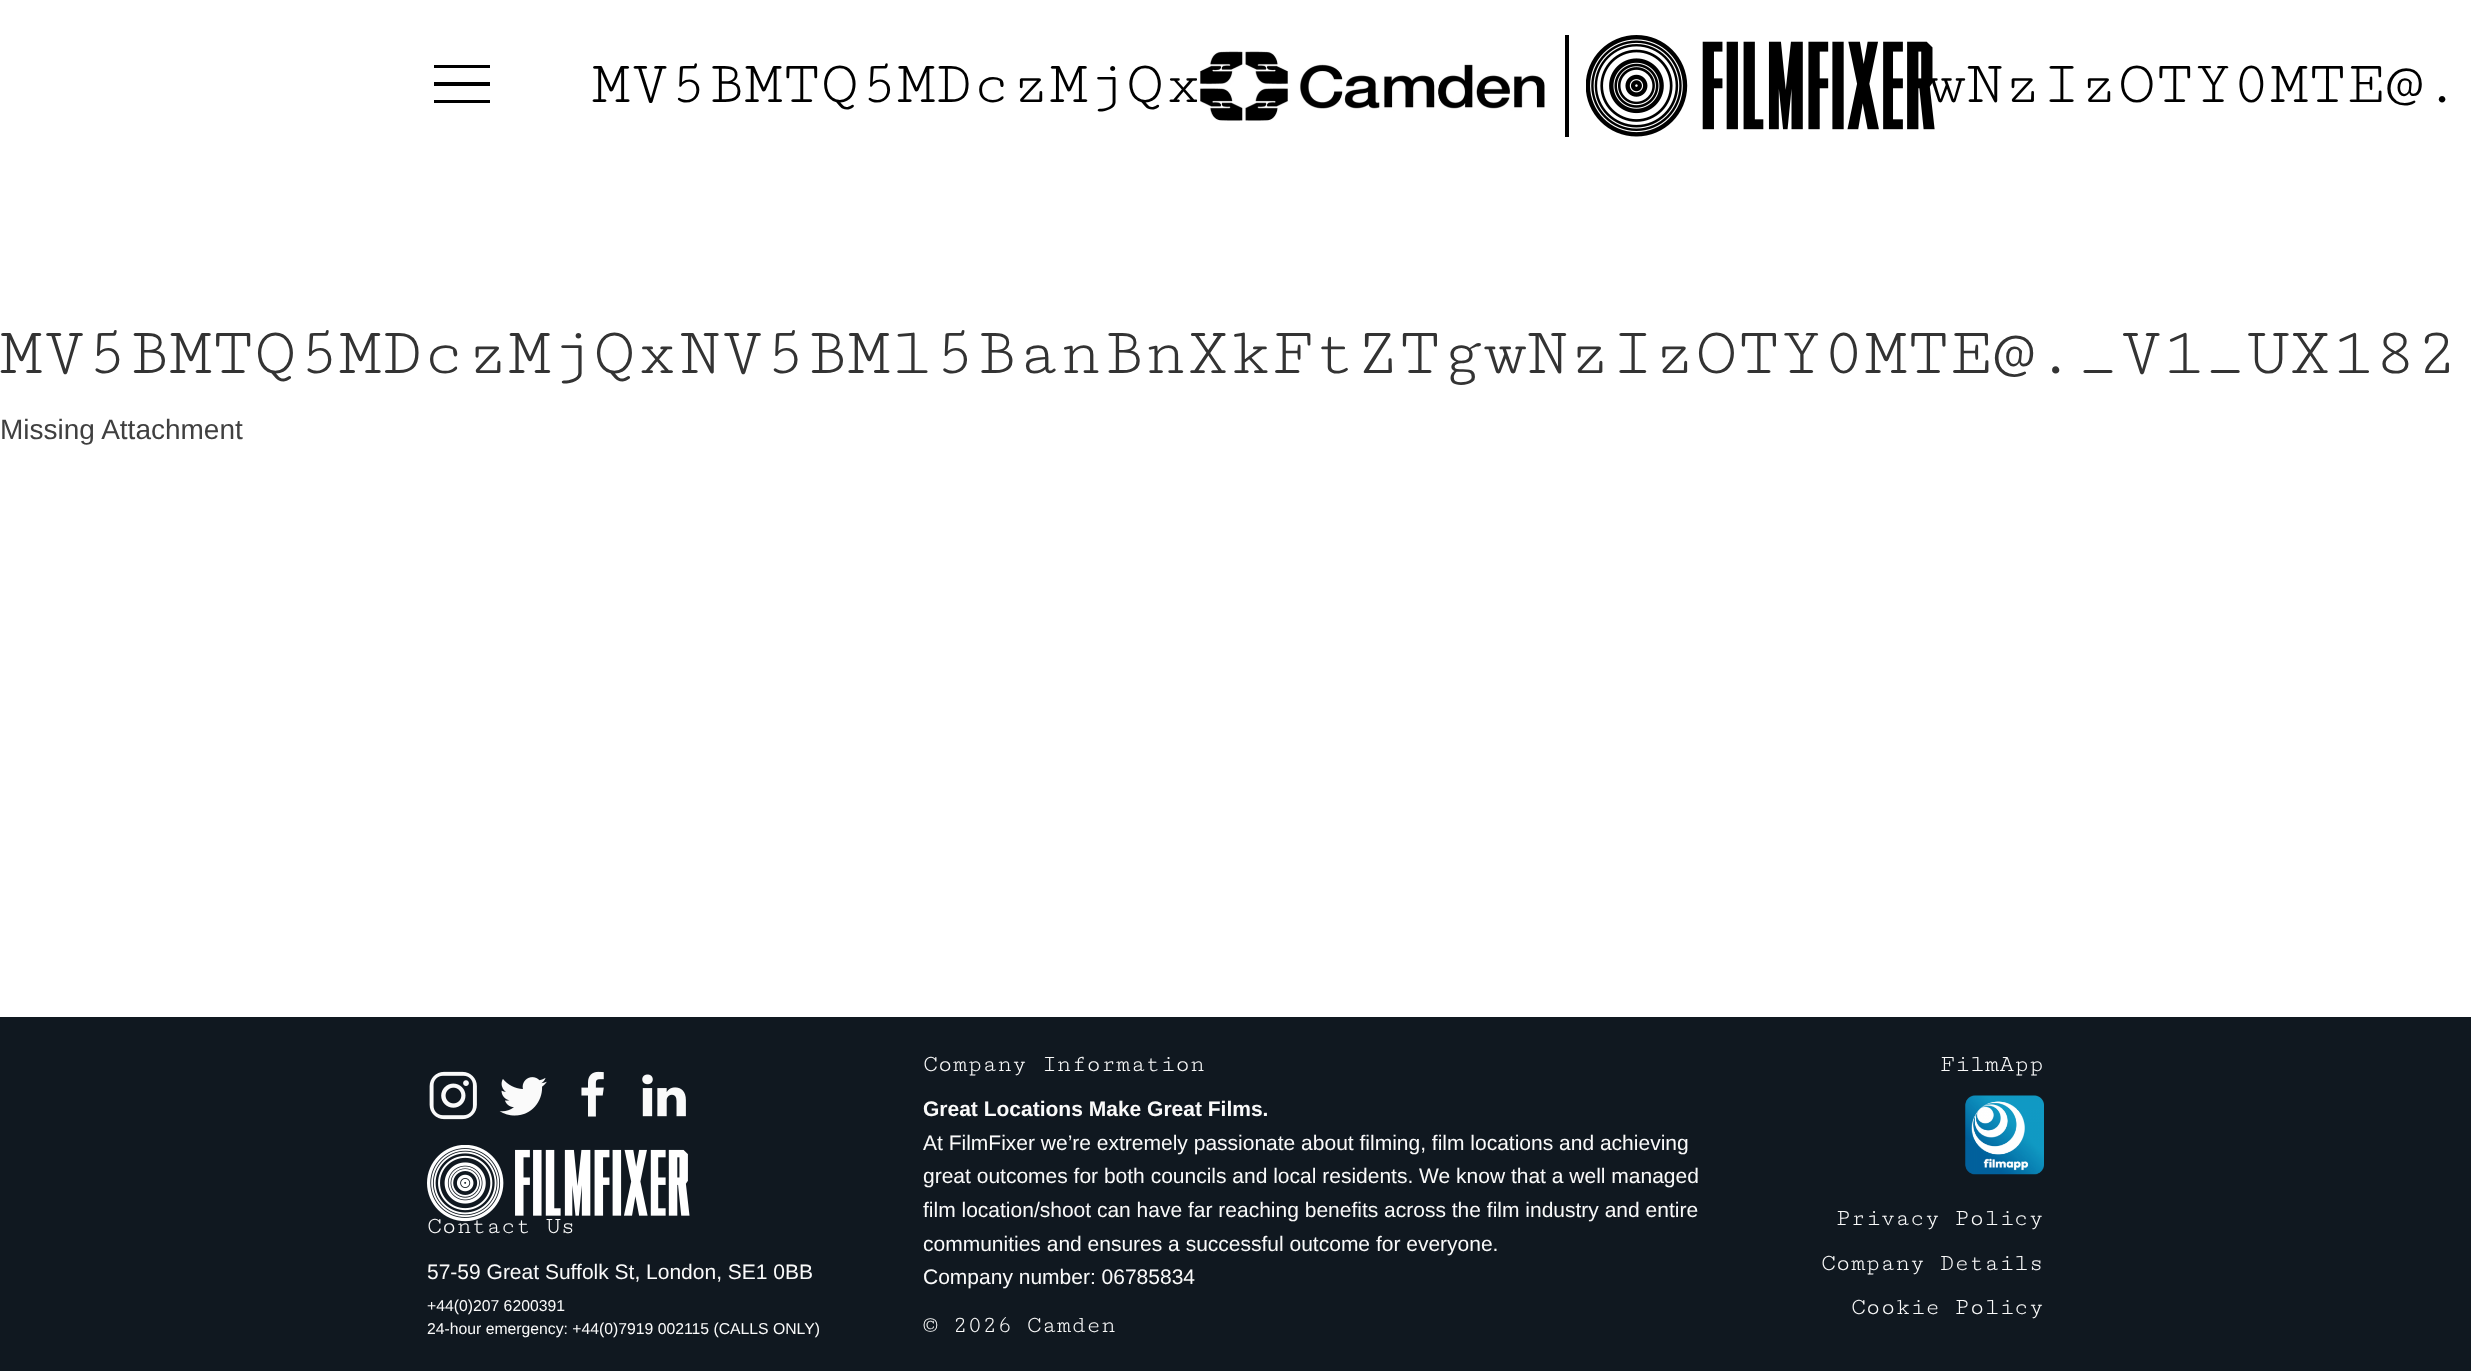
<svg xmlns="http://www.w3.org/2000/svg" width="2471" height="1371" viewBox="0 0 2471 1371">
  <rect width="100%" height="100%" fill="rgb(255,255,255)"/>
  <rect x="1565" y="35" width="4" height="102" fill="rgb(0,0,0)"/>
  <text x="592" y="102" font-family="Cutive Mono" font-size="63" fill="rgb(0,0,0)">MV5BMTQ5MDczMjQx</text>
  <image x="1197" y="51" width="348" height="70" href="pic1.png"/>
  <text x="1927" y="102" font-family="Cutive Mono" font-size="63" fill="rgb(0,0,0)">wNzIzOTY0MTE@.</text>
  <image x="1586" y="35" width="349" height="102" href="pic2.png"/>
  <rect x="434" y="65" width="56" height="3" fill="rgb(0,0,0)"/>
  <rect x="434" y="82" width="56" height="4" fill="rgb(0,0,0)"/>
  <rect x="434" y="100" width="56" height="3" fill="rgb(0,0,0)"/>
  <text x="0" y="373" font-family="Cutive Mono" font-size="70" fill="rgb(51,51,51)">MV5BMTQ5MDczMjQxNV5BMl5BanBnXkFtZTgwNzIzOTY0MTE@._V1_UX182</text>
  <text x="0" y="439" font-family="Liberation Sans" font-size="28" fill="rgb(64,64,64)">Missing Attachment</text>
  <rect x="0" y="1017" width="2471" height="354" fill="rgb(16,24,32)"/>
  <image x="429" y="1071" width="48" height="49" href="pic3.png"/>
  <image x="499" y="1077" width="48" height="39" href="pic4.png"/>
  <image x="581" y="1071" width="23" height="46" href="pic5.png"/>
  <image x="642" y="1074" width="44" height="43" href="pic6.png"/>
  <image x="427" y="1145" width="263" height="77" href="pic7.png"/>
  <text x="427" y="1233" font-family="Cutive Mono" font-size="24.5" fill="rgb(250,250,250)">Contact Us</text>
  <text x="427" y="1279" font-family="Liberation Sans" font-size="21" fill="rgb(250,250,250)">57-59 Great Suffolk St, London, SE1 0BB</text>
  <g font-family="Liberation Sans" font-size="15.75" fill="rgb(250,250,250)">
    <text>
      <tspan x="427" y="1311">+44(0)207 6200391</tspan>
      <tspan x="427" y="1334">24-hour emergency: +44(0)7919 002115 (CALLS ONLY)</tspan>
    </text>
  </g>
  <text x="923" y="1071" font-family="Cutive Mono" font-size="24.5" fill="rgb(250,250,250)">Company Information</text>
  <text x="923" y="1116" font-family="Liberation Sans" font-size="21" font-weight="bold" fill="rgb(250,250,250)">Great Locations Make Great Films.</text>
  <g font-family="Liberation Sans" font-size="21" fill="rgb(250,250,250)">
    <text>
      <tspan x="923" y="1150">At FilmFixer we’re extremely passionate about filming, film locations and achieving</tspan>
      <tspan x="923" y="1183">great outcomes for both councils and local residents. We know that a well managed</tspan>
      <tspan x="923" y="1217">film location/shoot can have far reaching benefits across the film industry and entire</tspan>
      <tspan x="923" y="1251">communities and ensures a successful outcome for everyone.</tspan>
      <tspan x="923" y="1284">Company number: 06785834</tspan>
    </text>
  </g>
  <g font-family="Cutive Mono" font-size="24.5" fill="rgb(250,250,250)">
    <text x="923" y="1332">© 2026 Camden</text>
    <text x="1940" y="1071">FilmApp</text>
  </g>
  <image x="1965" y="1095" width="79" height="80" href="pic8.png"/>
  <g font-family="Cutive Mono" font-size="24.5" fill="rgb(250,250,250)">
    <text x="1836" y="1225">Privacy Policy</text>
    <text x="1821" y="1270">Company Details</text>
    <text x="1851" y="1314">Cookie Policy</text>
  </g>
</svg>
